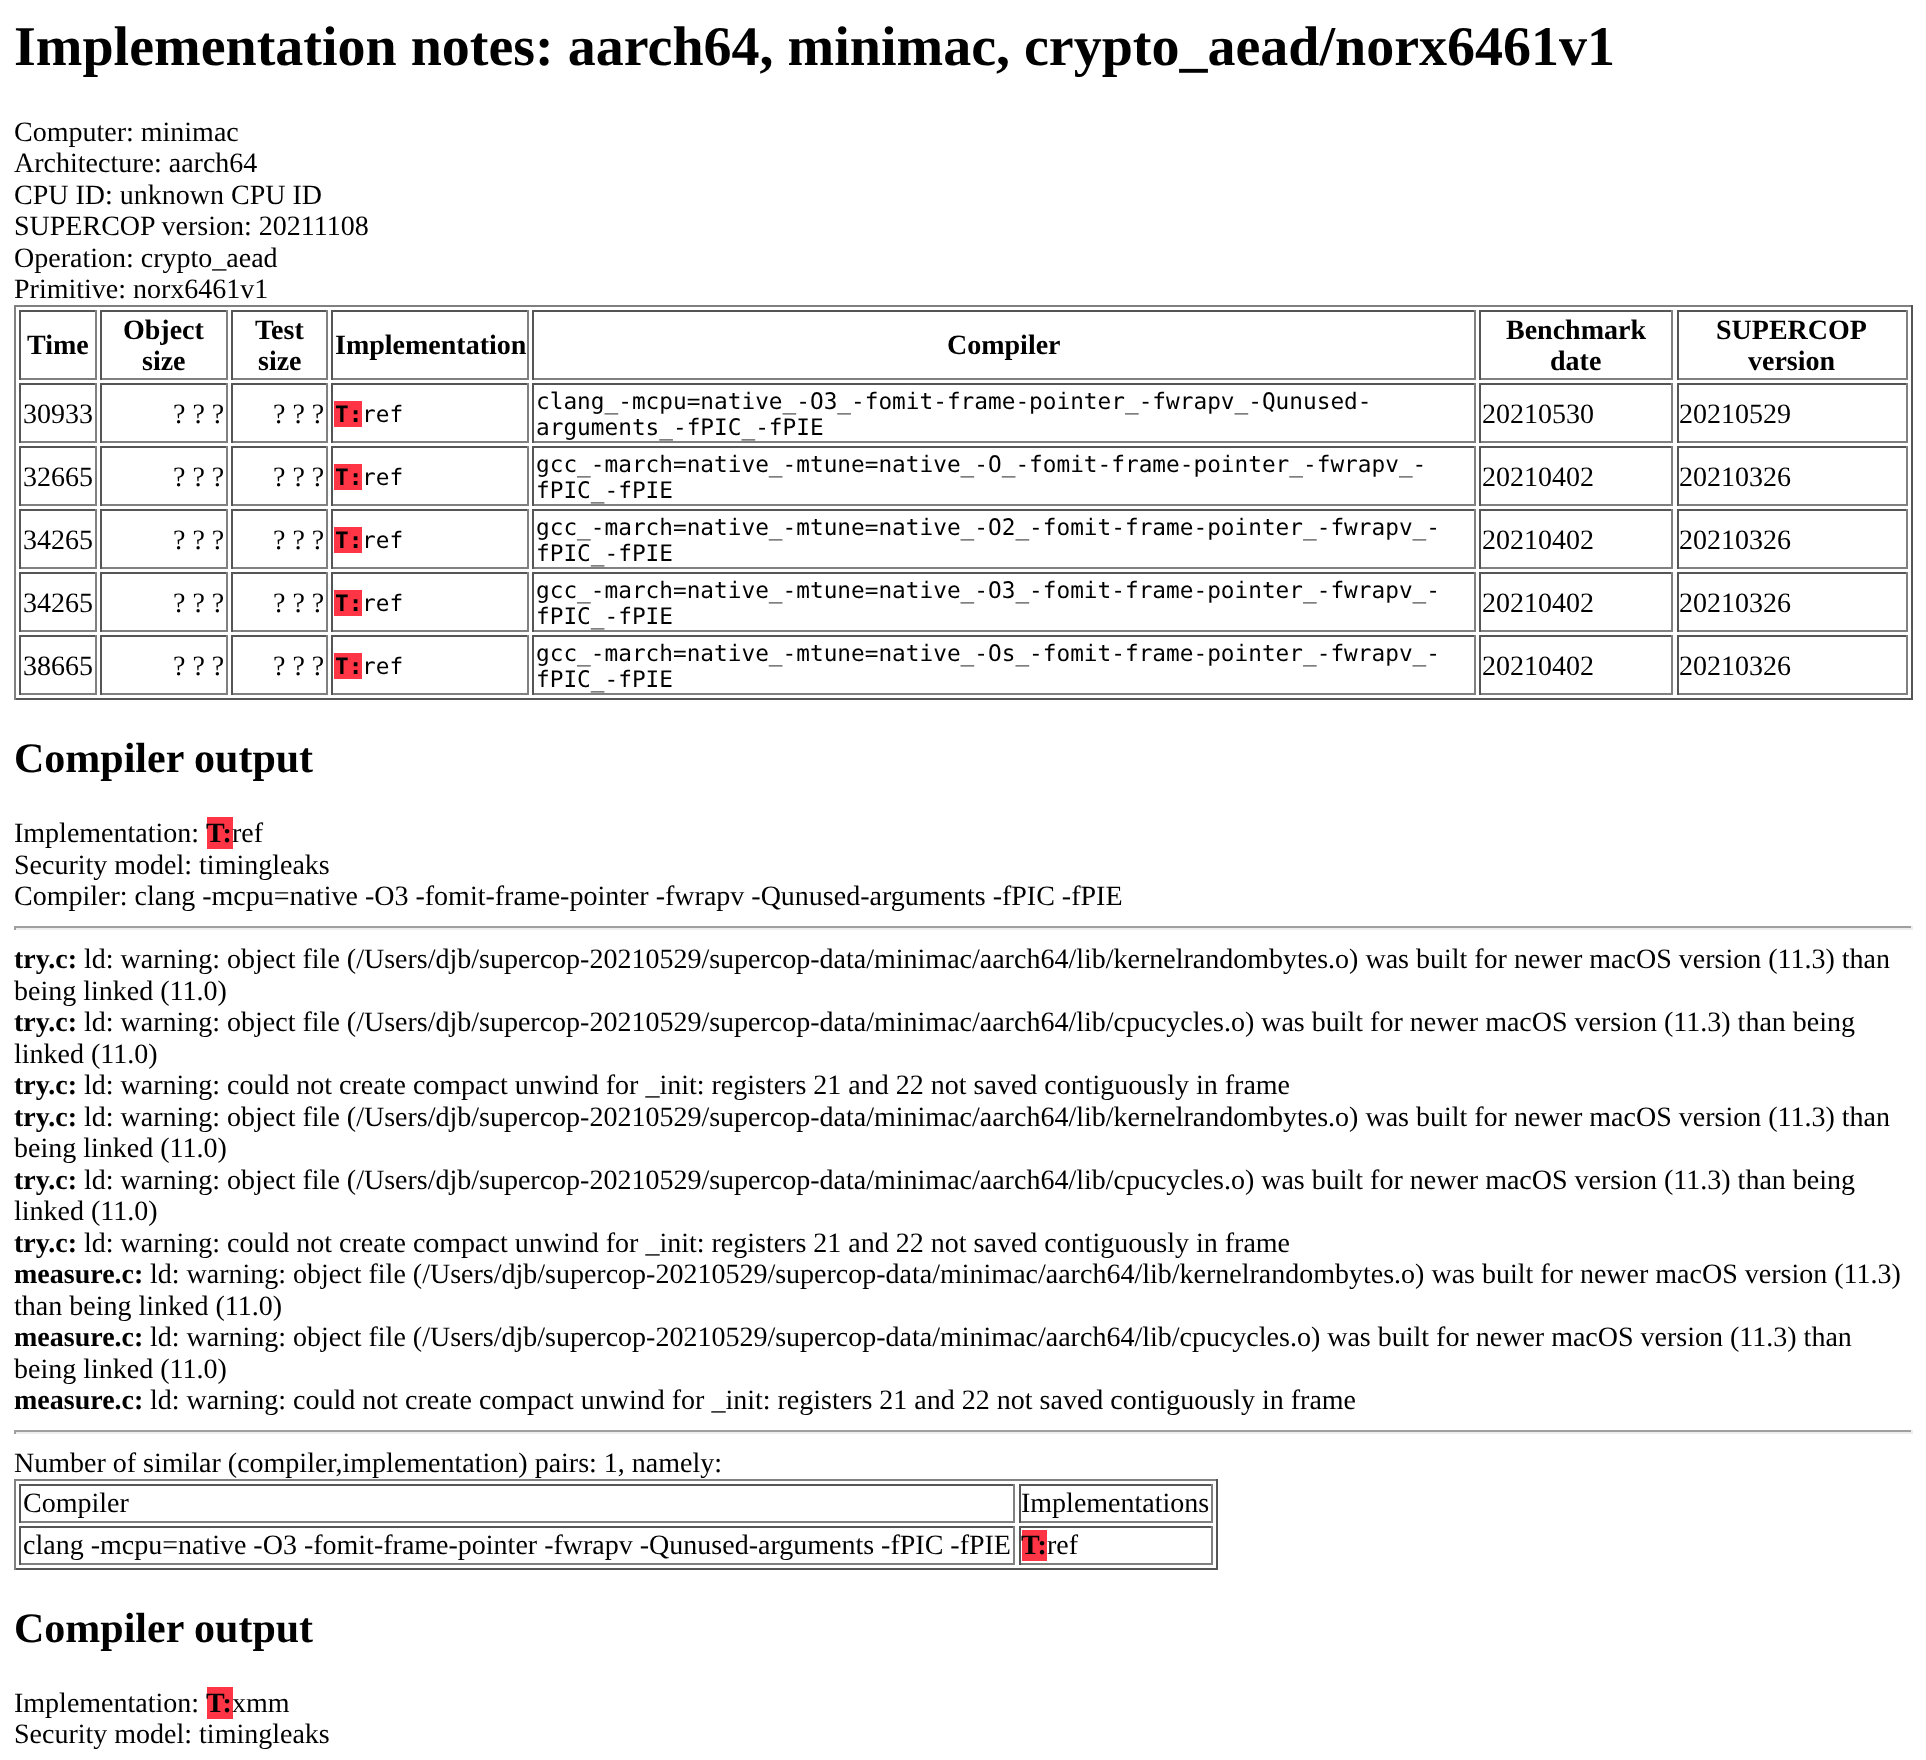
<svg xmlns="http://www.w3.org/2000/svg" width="1926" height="1760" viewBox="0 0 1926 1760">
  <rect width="100%" height="100%" fill="rgb(255,255,255)"/>
  <text x="14" y="65" font-family="Liberation Serif" font-size="56" font-weight="bold" fill="rgb(0,0,0)">Implementation notes: aarch64, minimac, crypto_aead/norx6461v1</text>
  <g font-family="Liberation Serif" font-size="28" fill="rgb(0,0,0)">
    <text>
      <tspan x="14" y="141">Computer: minimac</tspan>
      <tspan x="14" y="172">Architecture: aarch64</tspan>
      <tspan x="14" y="204">CPU ID: unknown CPU ID</tspan>
      <tspan x="14" y="235">SUPERCOP version: 20211108</tspan>
      <tspan x="14" y="267">Operation: crypto_aead</tspan>
      <tspan x="14" y="298">Primitive: norx6461v1</tspan>
    </text>
  </g>
  <rect x="14" y="305" width="1899" height="2" fill="rgb(128,128,128)"/>
  <rect x="1911" y="305" width="2" height="395" fill="rgb(85,85,85)"/>
  <rect x="14" y="698" width="1899" height="2" fill="rgb(85,85,85)"/>
  <rect x="14" y="305" width="2" height="395" fill="rgb(128,128,128)"/>
  <rect x="19" y="310" width="77" height="2" fill="rgb(85,85,85)"/>
  <rect x="95" y="310" width="2" height="70" fill="rgb(128,128,128)"/>
  <rect x="19" y="378" width="77" height="2" fill="rgb(128,128,128)"/>
  <rect x="19" y="310" width="2" height="70" fill="rgb(85,85,85)"/>
  <text x="27" y="354" font-family="Liberation Serif" font-size="28" font-weight="bold" fill="rgb(0,0,0)">Time</text>
  <rect x="100" y="310" width="128" height="2" fill="rgb(85,85,85)"/>
  <rect x="226" y="310" width="2" height="70" fill="rgb(128,128,128)"/>
  <rect x="100" y="378" width="128" height="2" fill="rgb(128,128,128)"/>
  <rect x="100" y="310" width="2" height="70" fill="rgb(85,85,85)"/>
  <g font-family="Liberation Serif" font-size="28" font-weight="bold" fill="rgb(0,0,0)">
    <text x="123" y="339">Object</text>
    <text x="142" y="370">size</text>
  </g>
  <rect x="231" y="310" width="96" height="2" fill="rgb(85,85,85)"/>
  <rect x="326" y="310" width="2" height="70" fill="rgb(128,128,128)"/>
  <rect x="231" y="378" width="96" height="2" fill="rgb(128,128,128)"/>
  <rect x="231" y="310" width="2" height="70" fill="rgb(85,85,85)"/>
  <g font-family="Liberation Serif" font-size="28" font-weight="bold" fill="rgb(0,0,0)">
    <text x="255" y="339">Test</text>
    <text x="258" y="370">size</text>
  </g>
  <rect x="331" y="310" width="198" height="2" fill="rgb(85,85,85)"/>
  <rect x="527" y="310" width="2" height="70" fill="rgb(128,128,128)"/>
  <rect x="331" y="378" width="198" height="2" fill="rgb(128,128,128)"/>
  <rect x="331" y="310" width="2" height="70" fill="rgb(85,85,85)"/>
  <text x="335" y="354" font-family="Liberation Serif" font-size="28" font-weight="bold" fill="rgb(0,0,0)">Implementation</text>
  <rect x="532" y="310" width="943" height="2" fill="rgb(85,85,85)"/>
  <rect x="1474" y="310" width="2" height="70" fill="rgb(128,128,128)"/>
  <rect x="532" y="378" width="943" height="2" fill="rgb(128,128,128)"/>
  <rect x="532" y="310" width="2" height="70" fill="rgb(85,85,85)"/>
  <text x="947" y="354" font-family="Liberation Serif" font-size="28" font-weight="bold" fill="rgb(0,0,0)">Compiler</text>
  <rect x="1479" y="310" width="194" height="2" fill="rgb(85,85,85)"/>
  <rect x="1671" y="310" width="2" height="70" fill="rgb(128,128,128)"/>
  <rect x="1479" y="378" width="194" height="2" fill="rgb(128,128,128)"/>
  <rect x="1479" y="310" width="2" height="70" fill="rgb(85,85,85)"/>
  <g font-family="Liberation Serif" font-size="28" font-weight="bold" fill="rgb(0,0,0)">
    <text x="1506" y="339">Benchmark</text>
    <text x="1550" y="370">date</text>
  </g>
  <rect x="1677" y="310" width="231" height="2" fill="rgb(85,85,85)"/>
  <rect x="1906" y="310" width="2" height="70" fill="rgb(128,128,128)"/>
  <rect x="1677" y="378" width="231" height="2" fill="rgb(128,128,128)"/>
  <rect x="1677" y="310" width="2" height="70" fill="rgb(85,85,85)"/>
  <g font-family="Liberation Serif" font-size="28" font-weight="bold" fill="rgb(0,0,0)">
    <text x="1716" y="339">SUPERCOP</text>
    <text x="1748" y="370">version</text>
  </g>
  <rect x="19" y="383" width="77" height="2" fill="rgb(85,85,85)"/>
  <rect x="95" y="383" width="2" height="60" fill="rgb(128,128,128)"/>
  <rect x="19" y="441" width="77" height="2" fill="rgb(128,128,128)"/>
  <rect x="19" y="383" width="2" height="60" fill="rgb(85,85,85)"/>
  <text x="23" y="423" font-family="Liberation Serif" font-size="28" fill="rgb(0,0,0)">30933</text>
  <rect x="100" y="383" width="128" height="2" fill="rgb(85,85,85)"/>
  <rect x="226" y="383" width="2" height="60" fill="rgb(128,128,128)"/>
  <rect x="100" y="441" width="128" height="2" fill="rgb(128,128,128)"/>
  <rect x="100" y="383" width="2" height="60" fill="rgb(85,85,85)"/>
  <text x="173" y="423" font-family="Liberation Serif" font-size="28" fill="rgb(0,0,0)">? ? ?</text>
  <rect x="231" y="383" width="96" height="2" fill="rgb(85,85,85)"/>
  <rect x="326" y="383" width="2" height="60" fill="rgb(128,128,128)"/>
  <rect x="231" y="441" width="96" height="2" fill="rgb(128,128,128)"/>
  <rect x="231" y="383" width="2" height="60" fill="rgb(85,85,85)"/>
  <text x="273" y="423" font-family="Liberation Serif" font-size="28" fill="rgb(0,0,0)">? ? ?</text>
  <rect x="331" y="383" width="198" height="2" fill="rgb(85,85,85)"/>
  <rect x="527" y="383" width="2" height="60" fill="rgb(128,128,128)"/>
  <rect x="331" y="441" width="198" height="2" fill="rgb(128,128,128)"/>
  <rect x="331" y="383" width="2" height="60" fill="rgb(85,85,85)"/>
  <rect x="334" y="401" width="28" height="26" fill="rgb(255,53,69)"/>
  <text x="335" y="422" font-family="DejaVu Sans Mono" font-size="22.75" font-weight="bold" fill="rgb(0,0,0)">T:</text>
  <text x="362" y="422" font-family="DejaVu Sans Mono" font-size="22.75" fill="rgb(0,0,0)">ref</text>
  <rect x="532" y="383" width="943" height="2" fill="rgb(85,85,85)"/>
  <rect x="1474" y="383" width="2" height="60" fill="rgb(128,128,128)"/>
  <rect x="532" y="441" width="943" height="2" fill="rgb(128,128,128)"/>
  <rect x="532" y="383" width="2" height="60" fill="rgb(85,85,85)"/>
  <g font-family="DejaVu Sans Mono" font-size="22.75" fill="rgb(0,0,0)">
    <text>
      <tspan x="536" y="409">clang_-mcpu=native_-O3_-fomit-frame-pointer_-fwrapv_-Qunused-</tspan>
      <tspan x="536" y="435">arguments_-fPIC_-fPIE</tspan>
    </text>
  </g>
  <rect x="1479" y="383" width="194" height="2" fill="rgb(85,85,85)"/>
  <rect x="1671" y="383" width="2" height="60" fill="rgb(128,128,128)"/>
  <rect x="1479" y="441" width="194" height="2" fill="rgb(128,128,128)"/>
  <rect x="1479" y="383" width="2" height="60" fill="rgb(85,85,85)"/>
  <text x="1482" y="423" font-family="Liberation Serif" font-size="28" fill="rgb(0,0,0)">20210530</text>
  <rect x="1677" y="383" width="231" height="2" fill="rgb(85,85,85)"/>
  <rect x="1906" y="383" width="2" height="60" fill="rgb(128,128,128)"/>
  <rect x="1677" y="441" width="231" height="2" fill="rgb(128,128,128)"/>
  <rect x="1677" y="383" width="2" height="60" fill="rgb(85,85,85)"/>
  <text x="1679" y="423" font-family="Liberation Serif" font-size="28" fill="rgb(0,0,0)">20210529</text>
  <rect x="19" y="446" width="77" height="2" fill="rgb(85,85,85)"/>
  <rect x="95" y="446" width="2" height="60" fill="rgb(128,128,128)"/>
  <rect x="19" y="504" width="77" height="2" fill="rgb(128,128,128)"/>
  <rect x="19" y="446" width="2" height="60" fill="rgb(85,85,85)"/>
  <text x="23" y="486" font-family="Liberation Serif" font-size="28" fill="rgb(0,0,0)">32665</text>
  <rect x="100" y="446" width="128" height="2" fill="rgb(85,85,85)"/>
  <rect x="226" y="446" width="2" height="60" fill="rgb(128,128,128)"/>
  <rect x="100" y="504" width="128" height="2" fill="rgb(128,128,128)"/>
  <rect x="100" y="446" width="2" height="60" fill="rgb(85,85,85)"/>
  <text x="173" y="486" font-family="Liberation Serif" font-size="28" fill="rgb(0,0,0)">? ? ?</text>
  <rect x="231" y="446" width="96" height="2" fill="rgb(85,85,85)"/>
  <rect x="326" y="446" width="2" height="60" fill="rgb(128,128,128)"/>
  <rect x="231" y="504" width="96" height="2" fill="rgb(128,128,128)"/>
  <rect x="231" y="446" width="2" height="60" fill="rgb(85,85,85)"/>
  <text x="273" y="486" font-family="Liberation Serif" font-size="28" fill="rgb(0,0,0)">? ? ?</text>
  <rect x="331" y="446" width="198" height="2" fill="rgb(85,85,85)"/>
  <rect x="527" y="446" width="2" height="60" fill="rgb(128,128,128)"/>
  <rect x="331" y="504" width="198" height="2" fill="rgb(128,128,128)"/>
  <rect x="331" y="446" width="2" height="60" fill="rgb(85,85,85)"/>
  <rect x="334" y="464" width="28" height="26" fill="rgb(255,53,69)"/>
  <text x="335" y="485" font-family="DejaVu Sans Mono" font-size="22.75" font-weight="bold" fill="rgb(0,0,0)">T:</text>
  <text x="362" y="485" font-family="DejaVu Sans Mono" font-size="22.75" fill="rgb(0,0,0)">ref</text>
  <rect x="532" y="446" width="943" height="2" fill="rgb(85,85,85)"/>
  <rect x="1474" y="446" width="2" height="60" fill="rgb(128,128,128)"/>
  <rect x="532" y="504" width="943" height="2" fill="rgb(128,128,128)"/>
  <rect x="532" y="446" width="2" height="60" fill="rgb(85,85,85)"/>
  <g font-family="DejaVu Sans Mono" font-size="22.75" fill="rgb(0,0,0)">
    <text>
      <tspan x="536" y="472">gcc_-march=native_-mtune=native_-O_-fomit-frame-pointer_-fwrapv_-</tspan>
      <tspan x="536" y="498">fPIC_-fPIE</tspan>
    </text>
  </g>
  <rect x="1479" y="446" width="194" height="2" fill="rgb(85,85,85)"/>
  <rect x="1671" y="446" width="2" height="60" fill="rgb(128,128,128)"/>
  <rect x="1479" y="504" width="194" height="2" fill="rgb(128,128,128)"/>
  <rect x="1479" y="446" width="2" height="60" fill="rgb(85,85,85)"/>
  <text x="1482" y="486" font-family="Liberation Serif" font-size="28" fill="rgb(0,0,0)">20210402</text>
  <rect x="1677" y="446" width="231" height="2" fill="rgb(85,85,85)"/>
  <rect x="1906" y="446" width="2" height="60" fill="rgb(128,128,128)"/>
  <rect x="1677" y="504" width="231" height="2" fill="rgb(128,128,128)"/>
  <rect x="1677" y="446" width="2" height="60" fill="rgb(85,85,85)"/>
  <text x="1679" y="486" font-family="Liberation Serif" font-size="28" fill="rgb(0,0,0)">20210326</text>
  <rect x="19" y="509" width="77" height="2" fill="rgb(85,85,85)"/>
  <rect x="95" y="509" width="2" height="60" fill="rgb(128,128,128)"/>
  <rect x="19" y="567" width="77" height="2" fill="rgb(128,128,128)"/>
  <rect x="19" y="509" width="2" height="60" fill="rgb(85,85,85)"/>
  <text x="23" y="549" font-family="Liberation Serif" font-size="28" fill="rgb(0,0,0)">34265</text>
  <rect x="100" y="509" width="128" height="2" fill="rgb(85,85,85)"/>
  <rect x="226" y="509" width="2" height="60" fill="rgb(128,128,128)"/>
  <rect x="100" y="567" width="128" height="2" fill="rgb(128,128,128)"/>
  <rect x="100" y="509" width="2" height="60" fill="rgb(85,85,85)"/>
  <text x="173" y="549" font-family="Liberation Serif" font-size="28" fill="rgb(0,0,0)">? ? ?</text>
  <rect x="231" y="509" width="96" height="2" fill="rgb(85,85,85)"/>
  <rect x="326" y="509" width="2" height="60" fill="rgb(128,128,128)"/>
  <rect x="231" y="567" width="96" height="2" fill="rgb(128,128,128)"/>
  <rect x="231" y="509" width="2" height="60" fill="rgb(85,85,85)"/>
  <text x="273" y="549" font-family="Liberation Serif" font-size="28" fill="rgb(0,0,0)">? ? ?</text>
  <rect x="331" y="509" width="198" height="2" fill="rgb(85,85,85)"/>
  <rect x="527" y="509" width="2" height="60" fill="rgb(128,128,128)"/>
  <rect x="331" y="567" width="198" height="2" fill="rgb(128,128,128)"/>
  <rect x="331" y="509" width="2" height="60" fill="rgb(85,85,85)"/>
  <rect x="334" y="527" width="28" height="26" fill="rgb(255,53,69)"/>
  <text x="335" y="548" font-family="DejaVu Sans Mono" font-size="22.75" font-weight="bold" fill="rgb(0,0,0)">T:</text>
  <text x="362" y="548" font-family="DejaVu Sans Mono" font-size="22.75" fill="rgb(0,0,0)">ref</text>
  <rect x="532" y="509" width="943" height="2" fill="rgb(85,85,85)"/>
  <rect x="1474" y="509" width="2" height="60" fill="rgb(128,128,128)"/>
  <rect x="532" y="567" width="943" height="2" fill="rgb(128,128,128)"/>
  <rect x="532" y="509" width="2" height="60" fill="rgb(85,85,85)"/>
  <g font-family="DejaVu Sans Mono" font-size="22.75" fill="rgb(0,0,0)">
    <text>
      <tspan x="536" y="535">gcc_-march=native_-mtune=native_-O2_-fomit-frame-pointer_-fwrapv_-</tspan>
      <tspan x="536" y="561">fPIC_-fPIE</tspan>
    </text>
  </g>
  <rect x="1479" y="509" width="194" height="2" fill="rgb(85,85,85)"/>
  <rect x="1671" y="509" width="2" height="60" fill="rgb(128,128,128)"/>
  <rect x="1479" y="567" width="194" height="2" fill="rgb(128,128,128)"/>
  <rect x="1479" y="509" width="2" height="60" fill="rgb(85,85,85)"/>
  <text x="1482" y="549" font-family="Liberation Serif" font-size="28" fill="rgb(0,0,0)">20210402</text>
  <rect x="1677" y="509" width="231" height="2" fill="rgb(85,85,85)"/>
  <rect x="1906" y="509" width="2" height="60" fill="rgb(128,128,128)"/>
  <rect x="1677" y="567" width="231" height="2" fill="rgb(128,128,128)"/>
  <rect x="1677" y="509" width="2" height="60" fill="rgb(85,85,85)"/>
  <text x="1679" y="549" font-family="Liberation Serif" font-size="28" fill="rgb(0,0,0)">20210326</text>
  <rect x="19" y="572" width="77" height="2" fill="rgb(85,85,85)"/>
  <rect x="95" y="572" width="2" height="60" fill="rgb(128,128,128)"/>
  <rect x="19" y="630" width="77" height="2" fill="rgb(128,128,128)"/>
  <rect x="19" y="572" width="2" height="60" fill="rgb(85,85,85)"/>
  <text x="23" y="612" font-family="Liberation Serif" font-size="28" fill="rgb(0,0,0)">34265</text>
  <rect x="100" y="572" width="128" height="2" fill="rgb(85,85,85)"/>
  <rect x="226" y="572" width="2" height="60" fill="rgb(128,128,128)"/>
  <rect x="100" y="630" width="128" height="2" fill="rgb(128,128,128)"/>
  <rect x="100" y="572" width="2" height="60" fill="rgb(85,85,85)"/>
  <text x="173" y="612" font-family="Liberation Serif" font-size="28" fill="rgb(0,0,0)">? ? ?</text>
  <rect x="231" y="572" width="96" height="2" fill="rgb(85,85,85)"/>
  <rect x="326" y="572" width="2" height="60" fill="rgb(128,128,128)"/>
  <rect x="231" y="630" width="96" height="2" fill="rgb(128,128,128)"/>
  <rect x="231" y="572" width="2" height="60" fill="rgb(85,85,85)"/>
  <text x="273" y="612" font-family="Liberation Serif" font-size="28" fill="rgb(0,0,0)">? ? ?</text>
  <rect x="331" y="572" width="198" height="2" fill="rgb(85,85,85)"/>
  <rect x="527" y="572" width="2" height="60" fill="rgb(128,128,128)"/>
  <rect x="331" y="630" width="198" height="2" fill="rgb(128,128,128)"/>
  <rect x="331" y="572" width="2" height="60" fill="rgb(85,85,85)"/>
  <rect x="334" y="590" width="28" height="26" fill="rgb(255,53,69)"/>
  <text x="335" y="611" font-family="DejaVu Sans Mono" font-size="22.75" font-weight="bold" fill="rgb(0,0,0)">T:</text>
  <text x="362" y="611" font-family="DejaVu Sans Mono" font-size="22.75" fill="rgb(0,0,0)">ref</text>
  <rect x="532" y="572" width="943" height="2" fill="rgb(85,85,85)"/>
  <rect x="1474" y="572" width="2" height="60" fill="rgb(128,128,128)"/>
  <rect x="532" y="630" width="943" height="2" fill="rgb(128,128,128)"/>
  <rect x="532" y="572" width="2" height="60" fill="rgb(85,85,85)"/>
  <g font-family="DejaVu Sans Mono" font-size="22.75" fill="rgb(0,0,0)">
    <text>
      <tspan x="536" y="598">gcc_-march=native_-mtune=native_-O3_-fomit-frame-pointer_-fwrapv_-</tspan>
      <tspan x="536" y="624">fPIC_-fPIE</tspan>
    </text>
  </g>
  <rect x="1479" y="572" width="194" height="2" fill="rgb(85,85,85)"/>
  <rect x="1671" y="572" width="2" height="60" fill="rgb(128,128,128)"/>
  <rect x="1479" y="630" width="194" height="2" fill="rgb(128,128,128)"/>
  <rect x="1479" y="572" width="2" height="60" fill="rgb(85,85,85)"/>
  <text x="1482" y="612" font-family="Liberation Serif" font-size="28" fill="rgb(0,0,0)">20210402</text>
  <rect x="1677" y="572" width="231" height="2" fill="rgb(85,85,85)"/>
  <rect x="1906" y="572" width="2" height="60" fill="rgb(128,128,128)"/>
  <rect x="1677" y="630" width="231" height="2" fill="rgb(128,128,128)"/>
  <rect x="1677" y="572" width="2" height="60" fill="rgb(85,85,85)"/>
  <text x="1679" y="612" font-family="Liberation Serif" font-size="28" fill="rgb(0,0,0)">20210326</text>
  <rect x="19" y="635" width="77" height="2" fill="rgb(85,85,85)"/>
  <rect x="95" y="635" width="2" height="60" fill="rgb(128,128,128)"/>
  <rect x="19" y="693" width="77" height="2" fill="rgb(128,128,128)"/>
  <rect x="19" y="635" width="2" height="60" fill="rgb(85,85,85)"/>
  <text x="23" y="675" font-family="Liberation Serif" font-size="28" fill="rgb(0,0,0)">38665</text>
  <rect x="100" y="635" width="128" height="2" fill="rgb(85,85,85)"/>
  <rect x="226" y="635" width="2" height="60" fill="rgb(128,128,128)"/>
  <rect x="100" y="693" width="128" height="2" fill="rgb(128,128,128)"/>
  <rect x="100" y="635" width="2" height="60" fill="rgb(85,85,85)"/>
  <text x="173" y="675" font-family="Liberation Serif" font-size="28" fill="rgb(0,0,0)">? ? ?</text>
  <rect x="231" y="635" width="96" height="2" fill="rgb(85,85,85)"/>
  <rect x="326" y="635" width="2" height="60" fill="rgb(128,128,128)"/>
  <rect x="231" y="693" width="96" height="2" fill="rgb(128,128,128)"/>
  <rect x="231" y="635" width="2" height="60" fill="rgb(85,85,85)"/>
  <text x="273" y="675" font-family="Liberation Serif" font-size="28" fill="rgb(0,0,0)">? ? ?</text>
  <rect x="331" y="635" width="198" height="2" fill="rgb(85,85,85)"/>
  <rect x="527" y="635" width="2" height="60" fill="rgb(128,128,128)"/>
  <rect x="331" y="693" width="198" height="2" fill="rgb(128,128,128)"/>
  <rect x="331" y="635" width="2" height="60" fill="rgb(85,85,85)"/>
  <rect x="334" y="653" width="28" height="26" fill="rgb(255,53,69)"/>
  <text x="335" y="674" font-family="DejaVu Sans Mono" font-size="22.75" font-weight="bold" fill="rgb(0,0,0)">T:</text>
  <text x="362" y="674" font-family="DejaVu Sans Mono" font-size="22.75" fill="rgb(0,0,0)">ref</text>
  <rect x="532" y="635" width="943" height="2" fill="rgb(85,85,85)"/>
  <rect x="1474" y="635" width="2" height="60" fill="rgb(128,128,128)"/>
  <rect x="532" y="693" width="943" height="2" fill="rgb(128,128,128)"/>
  <rect x="532" y="635" width="2" height="60" fill="rgb(85,85,85)"/>
  <g font-family="DejaVu Sans Mono" font-size="22.75" fill="rgb(0,0,0)">
    <text>
      <tspan x="536" y="661">gcc_-march=native_-mtune=native_-Os_-fomit-frame-pointer_-fwrapv_-</tspan>
      <tspan x="536" y="687">fPIC_-fPIE</tspan>
    </text>
  </g>
  <rect x="1479" y="635" width="194" height="2" fill="rgb(85,85,85)"/>
  <rect x="1671" y="635" width="2" height="60" fill="rgb(128,128,128)"/>
  <rect x="1479" y="693" width="194" height="2" fill="rgb(128,128,128)"/>
  <rect x="1479" y="635" width="2" height="60" fill="rgb(85,85,85)"/>
  <text x="1482" y="675" font-family="Liberation Serif" font-size="28" fill="rgb(0,0,0)">20210402</text>
  <rect x="1677" y="635" width="231" height="2" fill="rgb(85,85,85)"/>
  <rect x="1906" y="635" width="2" height="60" fill="rgb(128,128,128)"/>
  <rect x="1677" y="693" width="231" height="2" fill="rgb(128,128,128)"/>
  <rect x="1677" y="635" width="2" height="60" fill="rgb(85,85,85)"/>
  <text x="1679" y="675" font-family="Liberation Serif" font-size="28" fill="rgb(0,0,0)">20210326</text>
  <text x="14" y="772" font-family="Liberation Serif" font-size="42" font-weight="bold" fill="rgb(0,0,0)">Compiler output</text>
  <text x="14" y="842" font-family="Liberation Serif" font-size="28" fill="rgb(0,0,0)">Implementation:</text>
  <rect x="207" y="817" width="26" height="32" fill="rgb(255,53,69)"/>
  <text x="206" y="842" font-family="Liberation Serif" font-size="28" font-weight="bold" fill="rgb(0,0,0)">T:</text>
  <g font-family="Liberation Serif" font-size="28" fill="rgb(0,0,0)">
    <text x="232" y="842">ref</text>
    <text>
      <tspan x="14" y="874">Security model: timingleaks</tspan>
      <tspan x="14" y="905">Compiler: clang -mcpu=native -O3 -fomit-frame-pointer -fwrapv -Qunused-arguments -fPIC -fPIE</tspan>
    </text>
  </g>
  <rect x="14" y="926" width="1899" height="2" fill="rgb(159,159,159)"/>
  <rect x="1911" y="926" width="2" height="4" fill="rgb(238,238,238)"/>
  <rect x="14" y="928" width="1899" height="2" fill="rgb(238,238,238)"/>
  <rect x="14" y="926" width="2" height="4" fill="rgb(159,159,159)"/>
  <text x="14" y="968" font-family="Liberation Serif" font-size="28" font-weight="bold" fill="rgb(0,0,0)">try.c:</text>
  <g font-family="Liberation Serif" font-size="28" fill="rgb(0,0,0)">
    <text x="84" y="968">ld: warning: object file (/Users/djb/supercop-20210529/supercop-data/minimac/aarch64/lib/kernelrandombytes.o) was built for newer macOS version (11.3) than</text>
    <text x="14" y="1000">being linked (11.0)</text>
  </g>
  <text x="14" y="1031" font-family="Liberation Serif" font-size="28" font-weight="bold" fill="rgb(0,0,0)">try.c:</text>
  <g font-family="Liberation Serif" font-size="28" fill="rgb(0,0,0)">
    <text x="84" y="1031">ld: warning: object file (/Users/djb/supercop-20210529/supercop-data/minimac/aarch64/lib/cpucycles.o) was built for newer macOS version (11.3) than being</text>
    <text x="14" y="1063">linked (11.0)</text>
  </g>
  <text x="14" y="1094" font-family="Liberation Serif" font-size="28" font-weight="bold" fill="rgb(0,0,0)">try.c:</text>
  <text x="84" y="1094" font-family="Liberation Serif" font-size="28" fill="rgb(0,0,0)">ld: warning: could not create compact unwind for _init: registers 21 and 22 not saved contiguously in frame</text>
  <text x="14" y="1126" font-family="Liberation Serif" font-size="28" font-weight="bold" fill="rgb(0,0,0)">try.c:</text>
  <g font-family="Liberation Serif" font-size="28" fill="rgb(0,0,0)">
    <text x="84" y="1126">ld: warning: object file (/Users/djb/supercop-20210529/supercop-data/minimac/aarch64/lib/kernelrandombytes.o) was built for newer macOS version (11.3) than</text>
    <text x="14" y="1157">being linked (11.0)</text>
  </g>
  <text x="14" y="1189" font-family="Liberation Serif" font-size="28" font-weight="bold" fill="rgb(0,0,0)">try.c:</text>
  <g font-family="Liberation Serif" font-size="28" fill="rgb(0,0,0)">
    <text x="84" y="1189">ld: warning: object file (/Users/djb/supercop-20210529/supercop-data/minimac/aarch64/lib/cpucycles.o) was built for newer macOS version (11.3) than being</text>
    <text x="14" y="1220">linked (11.0)</text>
  </g>
  <text x="14" y="1252" font-family="Liberation Serif" font-size="28" font-weight="bold" fill="rgb(0,0,0)">try.c:</text>
  <text x="84" y="1252" font-family="Liberation Serif" font-size="28" fill="rgb(0,0,0)">ld: warning: could not create compact unwind for _init: registers 21 and 22 not saved contiguously in frame</text>
  <text x="14" y="1283" font-family="Liberation Serif" font-size="28" font-weight="bold" fill="rgb(0,0,0)">measure.c:</text>
  <g font-family="Liberation Serif" font-size="28" fill="rgb(0,0,0)">
    <text x="150" y="1283">ld: warning: object file (/Users/djb/supercop-20210529/supercop-data/minimac/aarch64/lib/kernelrandombytes.o) was built for newer macOS version (11.3)</text>
    <text x="14" y="1315">than being linked (11.0)</text>
  </g>
  <text x="14" y="1346" font-family="Liberation Serif" font-size="28" font-weight="bold" fill="rgb(0,0,0)">measure.c:</text>
  <g font-family="Liberation Serif" font-size="28" fill="rgb(0,0,0)">
    <text x="150" y="1346">ld: warning: object file (/Users/djb/supercop-20210529/supercop-data/minimac/aarch64/lib/cpucycles.o) was built for newer macOS version (11.3) than</text>
    <text x="14" y="1378">being linked (11.0)</text>
  </g>
  <text x="14" y="1409" font-family="Liberation Serif" font-size="28" font-weight="bold" fill="rgb(0,0,0)">measure.c:</text>
  <text x="150" y="1409" font-family="Liberation Serif" font-size="28" fill="rgb(0,0,0)">ld: warning: could not create compact unwind for _init: registers 21 and 22 not saved contiguously in frame</text>
  <rect x="14" y="1430" width="1899" height="2" fill="rgb(159,159,159)"/>
  <rect x="1911" y="1430" width="2" height="4" fill="rgb(238,238,238)"/>
  <rect x="14" y="1432" width="1899" height="2" fill="rgb(238,238,238)"/>
  <rect x="14" y="1430" width="2" height="4" fill="rgb(159,159,159)"/>
  <text x="14" y="1472" font-family="Liberation Serif" font-size="28" fill="rgb(0,0,0)">Number of similar (compiler,implementation) pairs: 1, namely:</text>
  <rect x="14" y="1479" width="1204" height="2" fill="rgb(128,128,128)"/>
  <rect x="1216" y="1479" width="2" height="91" fill="rgb(85,85,85)"/>
  <rect x="14" y="1568" width="1204" height="2" fill="rgb(85,85,85)"/>
  <rect x="14" y="1479" width="2" height="91" fill="rgb(128,128,128)"/>
  <rect x="19" y="1484" width="996" height="2" fill="rgb(85,85,85)"/>
  <rect x="1013" y="1484" width="2" height="39" fill="rgb(128,128,128)"/>
  <rect x="19" y="1521" width="996" height="2" fill="rgb(128,128,128)"/>
  <rect x="19" y="1484" width="2" height="39" fill="rgb(85,85,85)"/>
  <text x="23" y="1512" font-family="Liberation Serif" font-size="28" fill="rgb(0,0,0)">Compiler</text>
  <rect x="1019" y="1484" width="194" height="2" fill="rgb(85,85,85)"/>
  <rect x="1211" y="1484" width="2" height="39" fill="rgb(128,128,128)"/>
  <rect x="1019" y="1521" width="194" height="2" fill="rgb(128,128,128)"/>
  <rect x="1019" y="1484" width="2" height="39" fill="rgb(85,85,85)"/>
  <text x="1021" y="1512" font-family="Liberation Serif" font-size="28" fill="rgb(0,0,0)">Implementations</text>
  <rect x="19" y="1526" width="996" height="2" fill="rgb(85,85,85)"/>
  <rect x="1013" y="1526" width="2" height="39" fill="rgb(128,128,128)"/>
  <rect x="19" y="1563" width="996" height="2" fill="rgb(128,128,128)"/>
  <rect x="19" y="1526" width="2" height="39" fill="rgb(85,85,85)"/>
  <text x="23" y="1554" font-family="Liberation Serif" font-size="28" fill="rgb(0,0,0)">clang -mcpu=native -O3 -fomit-frame-pointer -fwrapv -Qunused-arguments -fPIC -fPIE</text>
  <rect x="1019" y="1526" width="194" height="2" fill="rgb(85,85,85)"/>
  <rect x="1211" y="1526" width="2" height="39" fill="rgb(128,128,128)"/>
  <rect x="1019" y="1563" width="194" height="2" fill="rgb(128,128,128)"/>
  <rect x="1019" y="1526" width="2" height="39" fill="rgb(85,85,85)"/>
  <rect x="1022" y="1530" width="25" height="31" fill="rgb(255,53,69)"/>
  <text x="1021" y="1554" font-family="Liberation Serif" font-size="28" font-weight="bold" fill="rgb(0,0,0)">T:</text>
  <text x="1047" y="1554" font-family="Liberation Serif" font-size="28" fill="rgb(0,0,0)">ref</text>
  <text x="14" y="1642" font-family="Liberation Serif" font-size="42" font-weight="bold" fill="rgb(0,0,0)">Compiler output</text>
  <text x="14" y="1712" font-family="Liberation Serif" font-size="28" fill="rgb(0,0,0)">Implementation:</text>
  <rect x="207" y="1687" width="26" height="32" fill="rgb(255,53,69)"/>
  <text x="206" y="1712" font-family="Liberation Serif" font-size="28" font-weight="bold" fill="rgb(0,0,0)">T:</text>
  <g font-family="Liberation Serif" font-size="28" fill="rgb(0,0,0)">
    <text x="232" y="1712">xmm</text>
    <text x="14" y="1743">Security model: timingleaks</text>
  </g>
</svg>
